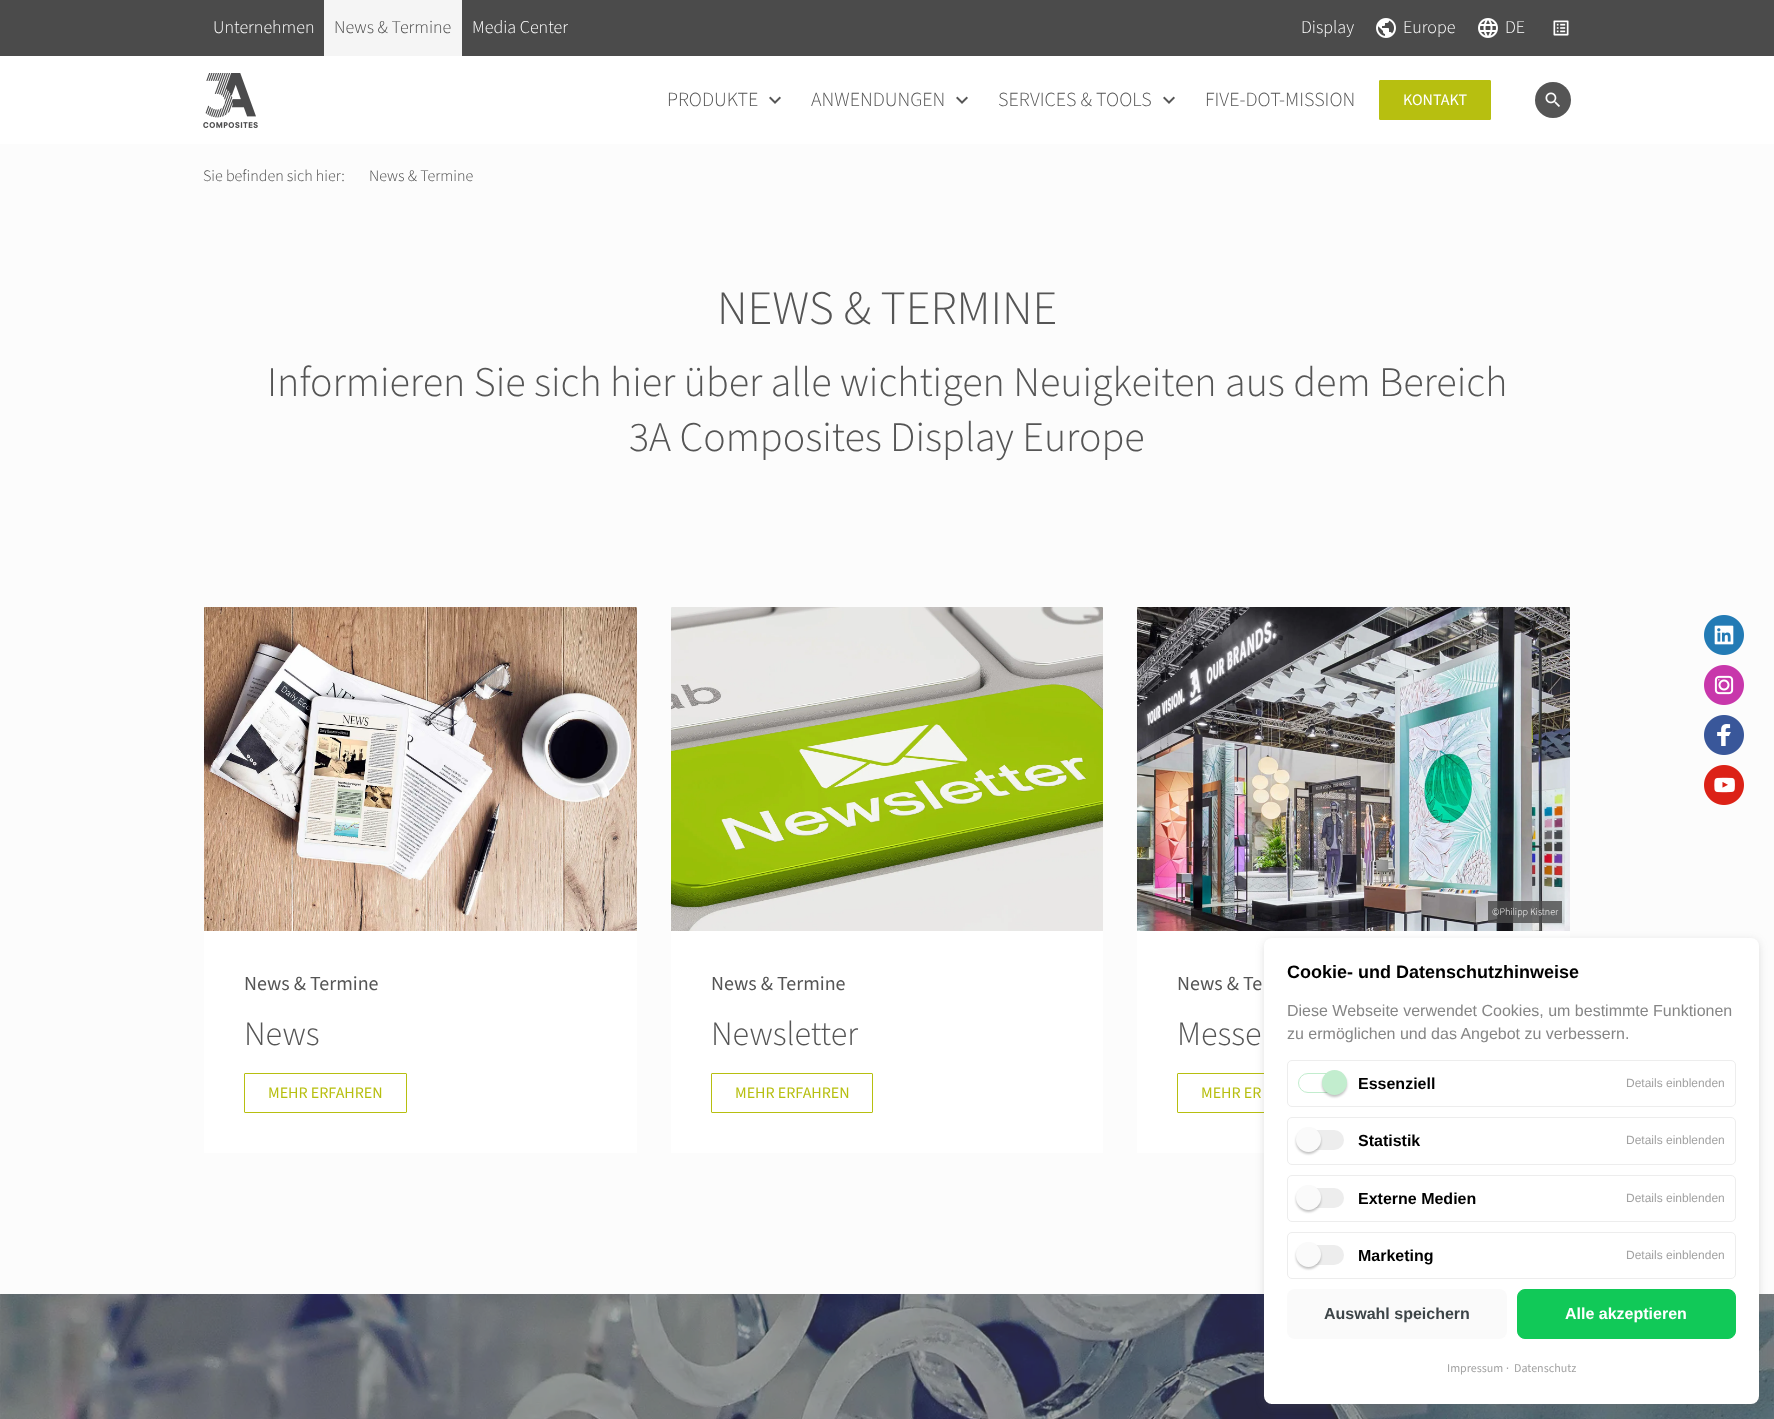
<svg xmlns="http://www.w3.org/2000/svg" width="1774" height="1419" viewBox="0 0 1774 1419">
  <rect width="100%" height="100%" fill="rgb(252,252,252)"/>
  <rect x="0" y="56" width="1774" height="88" fill="rgb(255,255,255)"/>
  <rect x="0" y="0" width="1774" height="56" fill="rgb(75,75,75)"/>
  <text x="213" y="33" font-family="'Source Sans 3'" font-size="18" font-weight="300" fill="rgb(255,255,255)">Unternehmen</text>
  <rect x="324" y="0" width="138" height="56" fill="rgb(245,245,245)"/>
  <text x="334" y="33" font-family="'Source Sans 3'" font-size="18" font-weight="300" fill="rgb(75,75,75)">News &amp; Termine</text>
  <g font-family="'Source Sans 3'" font-size="18" font-weight="300" fill="rgb(255,255,255)">
    <text x="472" y="33">Media Center</text>
    <text x="1301" y="33">Display</text>
  </g>
  <image x="1376" y="18" width="20" height="20" href="pic1.png"/>
  <text x="1403" y="33" font-family="'Source Sans 3'" font-size="18" font-weight="300" fill="rgb(255,255,255)">Europe</text>
  <image x="1478" y="18" width="20" height="20" href="pic2.png"/>
  <text x="1505" y="33" font-family="'Source Sans 3'" font-size="18" font-weight="300" fill="rgb(255,255,255)">DE</text>
  <image x="1553" y="20" width="16" height="16" href="pic3.png"/>
  <image x="203" y="73" width="55" height="55" href="pic4.png"/>
  <text x="667" y="106" font-family="'Source Sans 3'" font-size="20" font-weight="300" fill="rgb(85,85,85)">PRODUKTE</text>
  <image x="769" y="96" width="12" height="8" href="pic5.png"/>
  <text x="811" y="106" font-family="'Source Sans 3'" font-size="20" font-weight="300" fill="rgb(85,85,85)">ANWENDUNGEN</text>
  <image x="956" y="96" width="12" height="8" href="pic5.png"/>
  <text x="998" y="106" font-family="'Source Sans 3'" font-size="20" font-weight="300" fill="rgb(85,85,85)">SERVICES &amp; TOOLS</text>
  <image x="1163" y="96" width="12" height="8" href="pic5.png"/>
  <text x="1205" y="106" font-family="'Source Sans 3'" font-size="20" font-weight="300" fill="rgb(85,85,85)">FIVE-DOT-MISSION</text>
  <rect x="1379.5" y="80.5" width="111" height="39" rx="0.5" fill="rgb(183,191,16)" stroke="rgb(183,191,16)"/>
  <text x="1403" y="105" font-family="'Source Sans 3'" font-size="16" fill="rgb(255,255,255)">KONTAKT</text>
  <circle cx="1553" cy="100" r="18" fill="rgb(85,85,85)"/>
  <image x="1545" y="92" width="15" height="15" href="pic6.png"/>
  <g font-family="'Source Sans 3'" font-size="16" font-weight="300" fill="rgb(75,75,75)">
    <text x="203" y="181">Sie befinden sich hier:</text>
    <text x="369" y="181">News &amp; Termine</text>
  </g>
  <text x="717" y="324" font-family="'Source Sans 3'" font-size="48" font-weight="300" fill="rgb(85,85,85)">NEWS &amp; TERMINE</text>
  <g font-family="'Source Sans 3'" font-size="42" font-weight="300" fill="rgb(85,85,85)">
    <text x="267" y="396">Informieren Sie sich hier über alle wichtigen Neuigkeiten aus dem Bereich</text>
    <text x="629" y="451">3A Composites Display Europe</text>
  </g>
  <image x="1704" y="615" width="40" height="40" href="pic7.png"/>
  <image x="1704" y="665" width="40" height="40" href="pic8.png"/>
  <image x="1704" y="715" width="40" height="40" href="pic9.png"/>
  <image x="1704" y="765" width="40" height="40" href="pic10.png"/>
  <rect x="203.5" y="606.5" width="434" height="547" rx="0.5" fill="rgb(255,255,255)" stroke="rgb(252,252,252)"/>
  <image x="204" y="607" width="433" height="324" href="pic11.png"/>
  <text x="244" y="990" font-family="'Source Sans 3'" font-size="20" fill="rgb(85,85,85)">News &amp; Termine</text>
  <text x="244" y="1045" font-family="'Source Sans 3'" font-size="34" font-weight="300" fill="rgb(85,85,85)">News</text>
  <rect x="244.5" y="1073.5" width="162" height="39" rx="0.5" fill="none" stroke="rgb(183,191,16)"/>
  <text x="268" y="1098" font-family="'Source Sans 3'" font-size="16" fill="rgb(183,191,16)">MEHR ERFAHREN</text>
  <rect x="670.5" y="606.5" width="433" height="547" rx="0.5" fill="rgb(255,255,255)" stroke="rgb(252,252,252)"/>
  <image x="671" y="607" width="432" height="324" href="pic12.png"/>
  <text x="711" y="990" font-family="'Source Sans 3'" font-size="20" fill="rgb(85,85,85)">News &amp; Termine</text>
  <text x="711" y="1045" font-family="'Source Sans 3'" font-size="34" font-weight="300" fill="rgb(85,85,85)">Newsletter</text>
  <rect x="711.5" y="1073.5" width="161" height="39" rx="0.5" fill="none" stroke="rgb(183,191,16)"/>
  <text x="735" y="1098" font-family="'Source Sans 3'" font-size="16" fill="rgb(183,191,16)">MEHR ERFAHREN</text>
  <rect x="1136.5" y="606.5" width="434" height="547" rx="0.5" fill="rgb(255,255,255)" stroke="rgb(252,252,252)"/>
  <image x="1137" y="607" width="433" height="324" href="pic13.png"/>
  <rect x="1488" y="901" width="74" height="22" fill="rgba(75,75,75,0.8)"/>
  <text x="1492" y="915" font-family="'Source Sans 3'" font-size="10" font-weight="300" fill="rgb(255,255,255)">©Philipp Kistner</text>
  <text x="1177" y="990" font-family="'Source Sans 3'" font-size="20" fill="rgb(85,85,85)">News &amp; Te</text>
  <text x="1177" y="1045" font-family="'Source Sans 3'" font-size="34" font-weight="300" fill="rgb(85,85,85)">Messe</text>
  <rect x="1177.5" y="1073.5" width="162" height="39" rx="0.5" fill="none" stroke="rgb(183,191,16)"/>
  <text x="1201" y="1098" font-family="'Source Sans 3'" font-size="16" fill="rgb(183,191,16)">MEHR ER</text>
  <image x="0" y="1294" width="1774" height="125" href="pic14.png"/>
  <rect x="1264" y="940" width="495" height="466" rx="8" fill="rgba(99,99,99,0.2)" filter="blur(4px)"/>
  <rect x="1264" y="938" width="495" height="466" rx="8" fill="rgb(255,255,255)"/>
  <text x="1287" y="978" font-family="Liberation Sans" font-size="18" font-weight="bold" fill="rgb(0,0,0)">Cookie- und Datenschutzhinweise</text>
  <g font-family="Liberation Sans" font-size="16" fill="rgb(134,134,134)">
    <text>
      <tspan x="1287" y="1016">Diese Webseite verwendet Cookies, um bestimmte Funktionen</tspan>
      <tspan x="1287" y="1039">zu ermöglichen und das Angebot zu verbessern.</tspan>
    </text>
  </g>
  <rect x="1287.5" y="1060.5" width="448" height="46" rx="4.5" fill="none" stroke="rgb(237,237,237)"/>
  <rect x="1298.5" y="1073.5" width="45" height="19" rx="9.5" fill="none" stroke="rgb(194,237,206)"/>
  <rect x="1322" y="1072" width="25" height="25" rx="12.5" fill="rgba(0,0,0,0.24)" filter="blur(1px)"/>
  <circle cx="1334.5" cy="1082.5" r="12.5" fill="rgb(194,237,206)"/>
  <text x="1358" y="1089" font-family="Liberation Sans" font-size="16" font-weight="bold" fill="rgb(0,0,0)">Essenziell</text>
  <text x="1626" y="1087" font-family="Liberation Sans" font-size="12" fill="rgb(162,162,162)">Details einblenden</text>
  <rect x="1287.5" y="1117.5" width="448" height="47" rx="4.5" fill="none" stroke="rgb(237,237,237)"/>
  <rect x="1298" y="1130" width="46" height="20" rx="10" fill="rgb(237,237,237)"/>
  <rect x="1296" y="1129" width="25" height="25" rx="12.5" fill="rgba(0,0,0,0.24)" filter="blur(1px)"/>
  <circle cx="1308.5" cy="1139.5" r="12.5" fill="rgb(250,250,250)"/>
  <text x="1358" y="1146" font-family="Liberation Sans" font-size="16" font-weight="bold" fill="rgb(0,0,0)">Statistik</text>
  <text x="1626" y="1144" font-family="Liberation Sans" font-size="12" fill="rgb(162,162,162)">Details einblenden</text>
  <rect x="1287.5" y="1175.5" width="448" height="46" rx="4.5" fill="none" stroke="rgb(237,237,237)"/>
  <rect x="1298" y="1188" width="46" height="20" rx="10" fill="rgb(237,237,237)"/>
  <rect x="1296" y="1187" width="25" height="25" rx="12.5" fill="rgba(0,0,0,0.24)" filter="blur(1px)"/>
  <circle cx="1308.5" cy="1197.5" r="12.5" fill="rgb(250,250,250)"/>
  <text x="1358" y="1204" font-family="Liberation Sans" font-size="16" font-weight="bold" fill="rgb(0,0,0)">Externe Medien</text>
  <text x="1626" y="1202" font-family="Liberation Sans" font-size="12" fill="rgb(162,162,162)">Details einblenden</text>
  <rect x="1287.5" y="1232.5" width="448" height="46" rx="4.5" fill="none" stroke="rgb(237,237,237)"/>
  <rect x="1298" y="1245" width="46" height="20" rx="10" fill="rgb(237,237,237)"/>
  <rect x="1296" y="1244" width="25" height="25" rx="12.5" fill="rgba(0,0,0,0.24)" filter="blur(1px)"/>
  <circle cx="1308.5" cy="1254.5" r="12.5" fill="rgb(250,250,250)"/>
  <text x="1358" y="1261" font-family="Liberation Sans" font-size="16" font-weight="bold" fill="rgb(0,0,0)">Marketing</text>
  <text x="1626" y="1259" font-family="Liberation Sans" font-size="12" fill="rgb(162,162,162)">Details einblenden</text>
  <rect x="1287" y="1289" width="220" height="50" rx="8" fill="rgb(250,250,250)"/>
  <text x="1324" y="1319" font-family="Liberation Sans" font-size="16" font-weight="bold" fill="rgb(61,69,72)">Auswahl speichern</text>
  <rect x="1517.5" y="1289.5" width="218" height="49" rx="7.5" fill="rgb(17,201,88)" stroke="rgb(17,201,88)"/>
  <text x="1565" y="1319" font-family="Liberation Sans" font-size="16" font-weight="bold" fill="rgb(255,255,255)">Alle akzeptieren</text>
  <g font-family="'Source Sans 3'" font-size="12" fill="rgb(162,162,162)">
    <text x="1447" y="1372">Impressum</text>
    <text x="1506" y="1372">·</text>
    <text x="1514" y="1372">Datenschutz</text>
  </g>
</svg>
